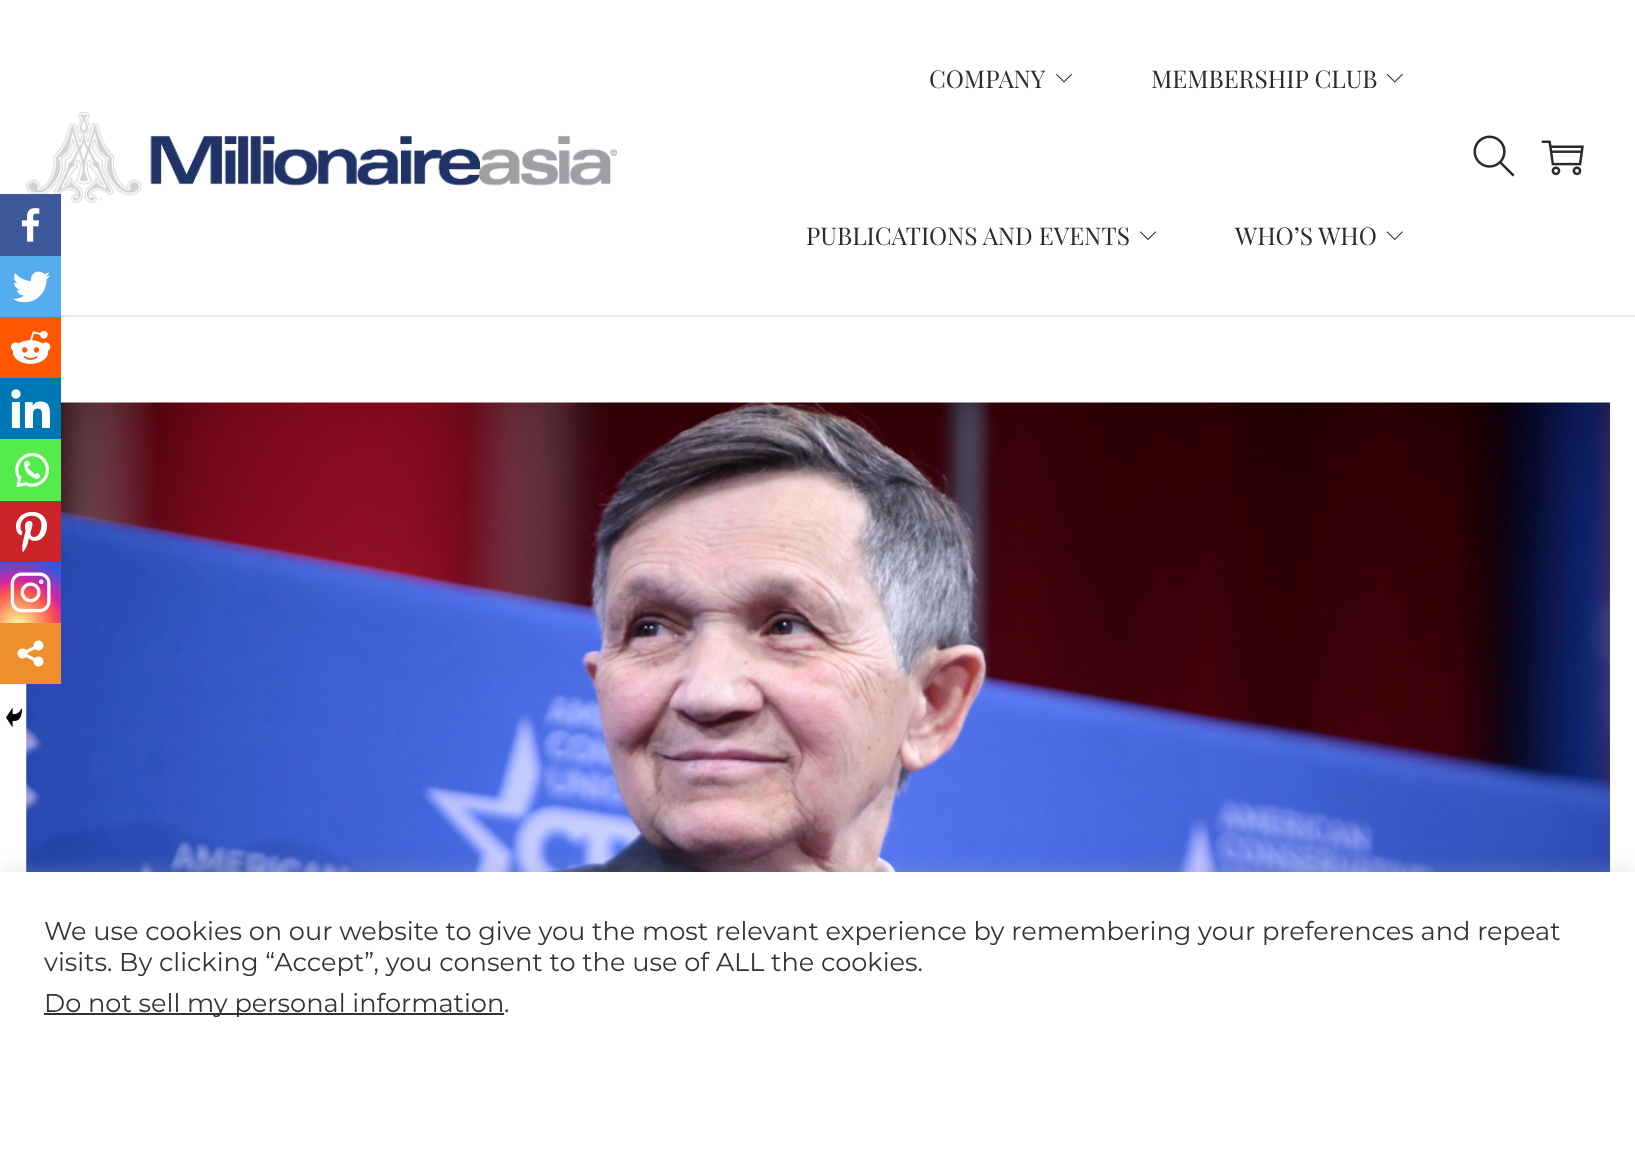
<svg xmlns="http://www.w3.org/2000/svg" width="1635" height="1151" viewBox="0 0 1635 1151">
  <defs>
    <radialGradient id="g1" gradientUnits="userSpaceOnUse" cx="18" cy="627" r="78"><stop offset="0" stop-color="rgb(253,244,151)"/><stop offset="0.05" stop-color="rgb(253,244,151)"/><stop offset="0.45" stop-color="rgb(253,89,73)"/><stop offset="0.6" stop-color="rgb(214,36,159)"/><stop offset="0.9" stop-color="rgb(40,90,235)"/></radialGradient>
  </defs>
  <rect width="100%" height="100%" fill="rgb(255,255,255)"/>
  <rect x="61" y="315" width="1574" height="2" fill="rgb(234,234,234)"/>
  <image x="26" y="112" width="592" height="91" href="pic1.png"/>
  <text x="929" y="88" font-family="Playfair Display SC" font-size="24.5" fill="rgb(43,43,43)">COMPANY</text>
  <image x="1056" y="74" width="16" height="9" href="pic2.png"/>
  <text x="1151" y="88" font-family="Playfair Display SC" font-size="24.5" fill="rgb(43,43,43)">MEMBERSHIP CLUB</text>
  <image x="1386" y="74" width="17" height="9" href="pic3.png"/>
  <text x="806" y="245" font-family="Playfair Display SC" font-size="24.5" fill="rgb(43,43,43)">PUBLICATIONS AND EVENTS</text>
  <image x="1140" y="231" width="16" height="9" href="pic4.png"/>
  <text x="1235" y="245" font-family="Playfair Display SC" font-size="24.5" fill="rgb(43,43,43)">WHO’S WHO</text>
  <image x="1386" y="231" width="17" height="9" href="pic5.png"/>
  <image x="1473" y="135" width="42" height="42" href="pic6.png"/>
  <image x="1541" y="140" width="43" height="36" href="pic7.png"/>
  <rect x="0" y="194" width="61" height="62" fill="rgb(60,88,154)"/>
  <image x="21" y="208" width="19" height="34" href="pic8.png"/>
  <rect x="0" y="256" width="61" height="61" fill="rgb(85,172,238)"/>
  <image x="12" y="271" width="39" height="32" href="pic9.png"/>
  <rect x="0" y="317" width="61" height="61" fill="rgb(255,87,0)"/>
  <image x="10" y="330" width="41" height="34" href="pic10.png"/>
  <image x="26" y="402" width="1584" height="470" href="pic17.png"/>
  <rect x="0" y="378" width="61" height="61" fill="rgb(0,119,181)"/>
  <image x="11" y="389" width="39" height="39" href="pic11.png"/>
  <rect x="0" y="439" width="61" height="62" fill="rgb(85,235,76)"/>
  <image x="15" y="453" width="34" height="34" href="pic12.png"/>
  <rect x="0" y="501" width="61" height="61" fill="rgb(204,35,41)"/>
  <image x="15" y="511" width="33" height="41" href="pic13.png"/>
  <rect x="0" y="562" width="61" height="61" fill="url(#g1)"/>
  <image x="10" y="572" width="41" height="41" href="pic14.png"/>
  <rect x="0" y="623" width="61" height="61" fill="rgb(238,142,45)"/>
  <image x="17" y="640" width="27" height="27" href="pic15.png"/>
  <image x="6" y="707" width="16" height="21" href="pic16.png"/>
  <rect x="0" y="870" width="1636" height="280" fill="rgba(172,171,171,0.3)" filter="blur(9px)"/>
  <rect x="0" y="872" width="1635" height="279" fill="rgb(255,255,255)"/>
  <g font-family="Montserrat" font-size="25.67" fill="rgb(51,51,51)">
    <text>
      <tspan x="44" y="940">We use cookies on our website to give you the most relevant experience by remembering your preferences and repeat</tspan>
      <tspan x="44" y="971">visits. By clicking “Accept”, you consent to the use of ALL the cookies.</tspan>
    </text>
  </g>
  <rect x="44" y="1013" width="460" height="2" fill="rgb(51,51,51)"/>
  <g font-family="Montserrat" font-size="25.67" fill="rgb(51,51,51)">
    <text x="44" y="1012">Do not sell my personal information</text>
    <text x="504" y="1012">.</text>
  </g>
</svg>
